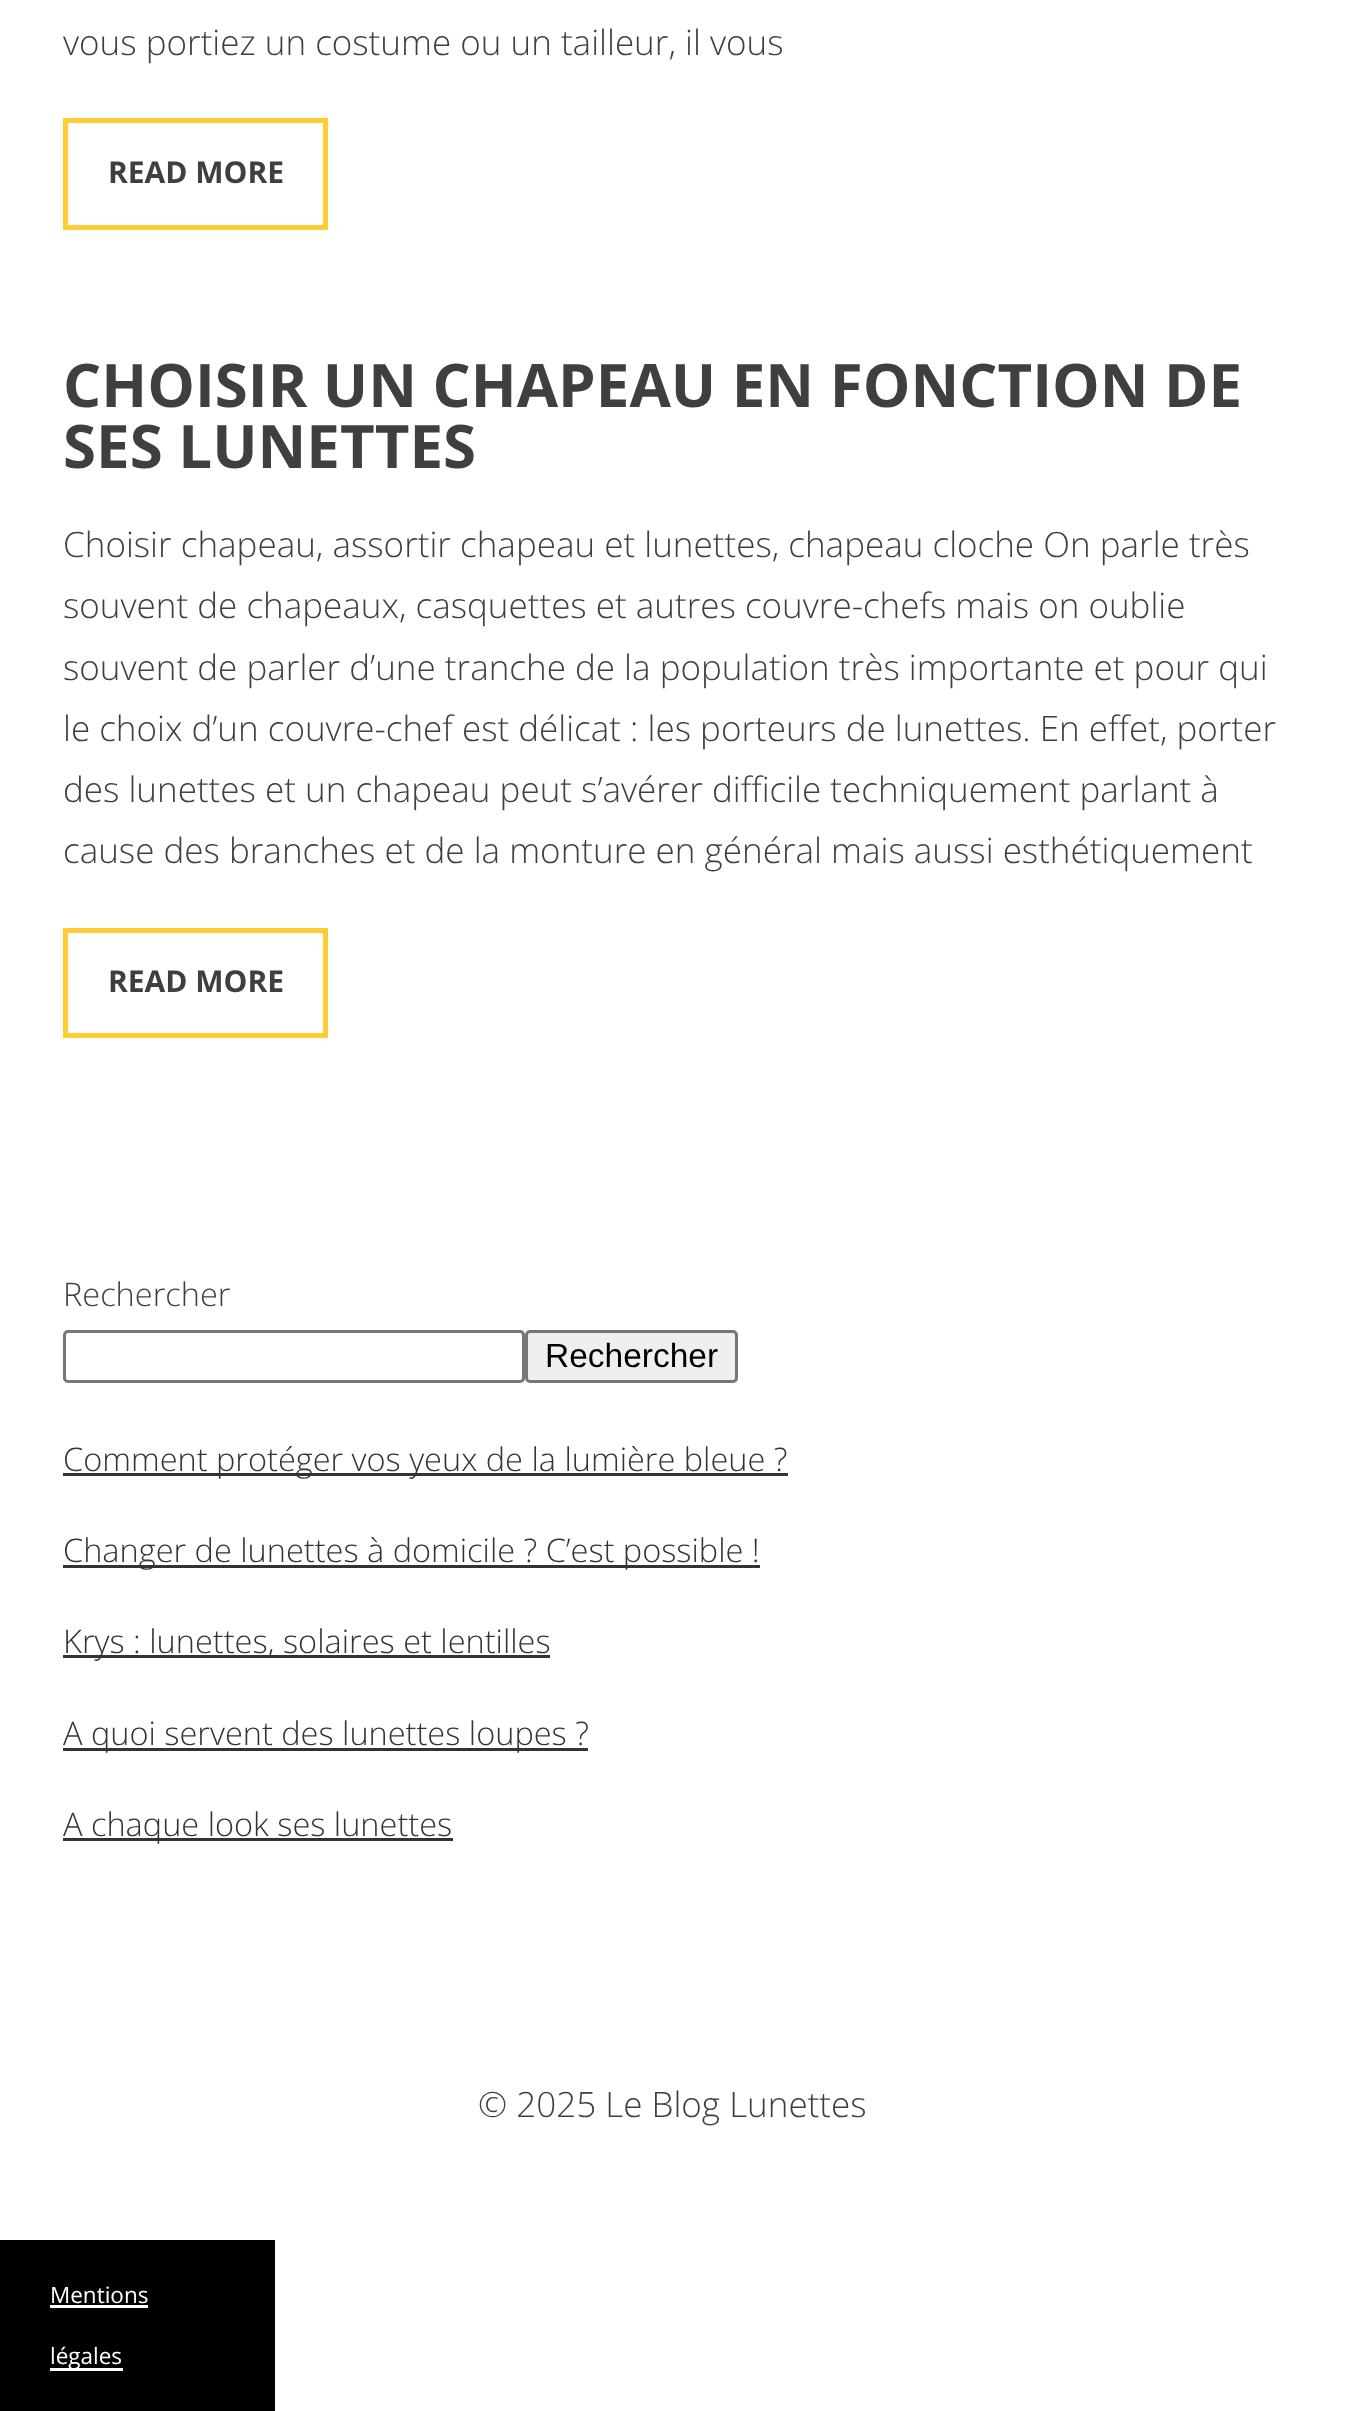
<svg xmlns="http://www.w3.org/2000/svg" width="1345" height="2411" viewBox="0 0 1345 2411">
  <rect width="100%" height="100%" fill="rgb(255,255,255)"/>
  <text x="63" y="55" font-family="Open Sans" font-size="35" font-weight="300" fill="rgb(63,63,63)">vous portiez un costume ou un tailleur, il vous</text>
  <rect x="65.5" y="120.5" width="260" height="107" fill="none" stroke="rgb(255,204,51)" stroke-width="5"/>
  <text x="108" y="183" font-family="Open Sans" font-size="30" font-weight="bold" fill="rgb(63,63,63)">READ MORE</text>
  <g font-family="Open Sans" font-size="60" font-weight="bold" fill="rgb(63,63,63)">
    <text>
      <tspan x="63" y="407">CHOISIR UN CHAPEAU EN FONCTION DE</tspan>
      <tspan x="63" y="468">SES LUNETTES</tspan>
    </text>
  </g>
  <g font-family="Open Sans" font-size="35" font-weight="300" fill="rgb(63,63,63)">
    <text>
      <tspan x="63" y="557">Choisir chapeau, assortir chapeau et lunettes, chapeau cloche On parle très</tspan>
      <tspan x="63" y="618">souvent de chapeaux, casquettes et autres couvre-chefs mais on oublie</tspan>
      <tspan x="63" y="680">souvent de parler d’une tranche de la population très importante et pour qui</tspan>
      <tspan x="63" y="741">le choix d’un couvre-chef est délicat : les porteurs de lunettes. En effet, porter</tspan>
      <tspan x="63" y="802">des lunettes et un chapeau peut s’avérer difficile techniquement parlant à</tspan>
      <tspan x="63" y="863">cause des branches et de la monture en général mais aussi esthétiquement</tspan>
    </text>
  </g>
  <rect x="65.5" y="930.5" width="260" height="105" fill="none" stroke="rgb(255,204,51)" stroke-width="5"/>
  <text x="108" y="992" font-family="Open Sans" font-size="30" font-weight="bold" fill="rgb(63,63,63)">READ MORE</text>
  <text x="63" y="1306" font-family="Open Sans" font-size="32.5" font-weight="300" fill="rgb(63,63,63)">Rechercher</text>
  <rect x="64.5" y="1331.5" width="459" height="50" rx="3.5" fill="none" stroke="rgb(118,118,118)" stroke-width="3"/>
  <rect x="526.5" y="1331.5" width="210" height="50" rx="3.5" fill="rgb(239,239,239)" stroke="rgb(118,118,118)" stroke-width="3"/>
  <text x="545" y="1367" font-family="Liberation Sans" font-size="33.5" fill="rgb(0,0,0)">Rechercher</text>
  <rect x="63" y="1473" width="725" height="3" fill="rgb(51,51,51)"/>
  <text x="63" y="1471" font-family="Open Sans" font-size="32.5" font-weight="300" fill="rgb(51,51,51)">Comment protéger vos yeux de la lumière bleue ?</text>
  <rect x="63" y="1565" width="697" height="3" fill="rgb(51,51,51)"/>
  <text x="63" y="1562" font-family="Open Sans" font-size="32.5" font-weight="300" fill="rgb(51,51,51)">Changer de lunettes à domicile ? C’est possible !</text>
  <rect x="63" y="1655" width="487" height="3" fill="rgb(51,51,51)"/>
  <text x="63" y="1653" font-family="Open Sans" font-size="32.5" font-weight="300" fill="rgb(51,51,51)">Krys : lunettes, solaires et lentilles</text>
  <rect x="63" y="1748" width="525" height="3" fill="rgb(51,51,51)"/>
  <text x="63" y="1745" font-family="Open Sans" font-size="32.5" font-weight="300" fill="rgb(51,51,51)">A quoi servent des lunettes loupes ?</text>
  <rect x="63" y="1838" width="390" height="3" fill="rgb(51,51,51)"/>
  <text x="63" y="1836" font-family="Open Sans" font-size="32.5" font-weight="300" fill="rgb(51,51,51)">A chaque look ses lunettes</text>
  <text x="478" y="2117" font-family="Open Sans" font-size="35" font-weight="300" fill="rgb(63,63,63)">© 2025 Le Blog Lunettes</text>
  <rect x="0" y="2240" width="275" height="171" fill="rgb(0,0,0)"/>
  <text x="50" y="2303" font-family="Open Sans" font-size="22.5" fill="rgb(255,255,255)">Mentions</text>
  <rect x="50" y="2305" width="98" height="3" fill="rgb(255,255,255)"/>
  <rect x="50" y="2368" width="73" height="3" fill="rgb(255,255,255)"/>
  <text x="50" y="2364" font-family="Open Sans" font-size="22.5" fill="rgb(255,255,255)">légales</text>
</svg>
